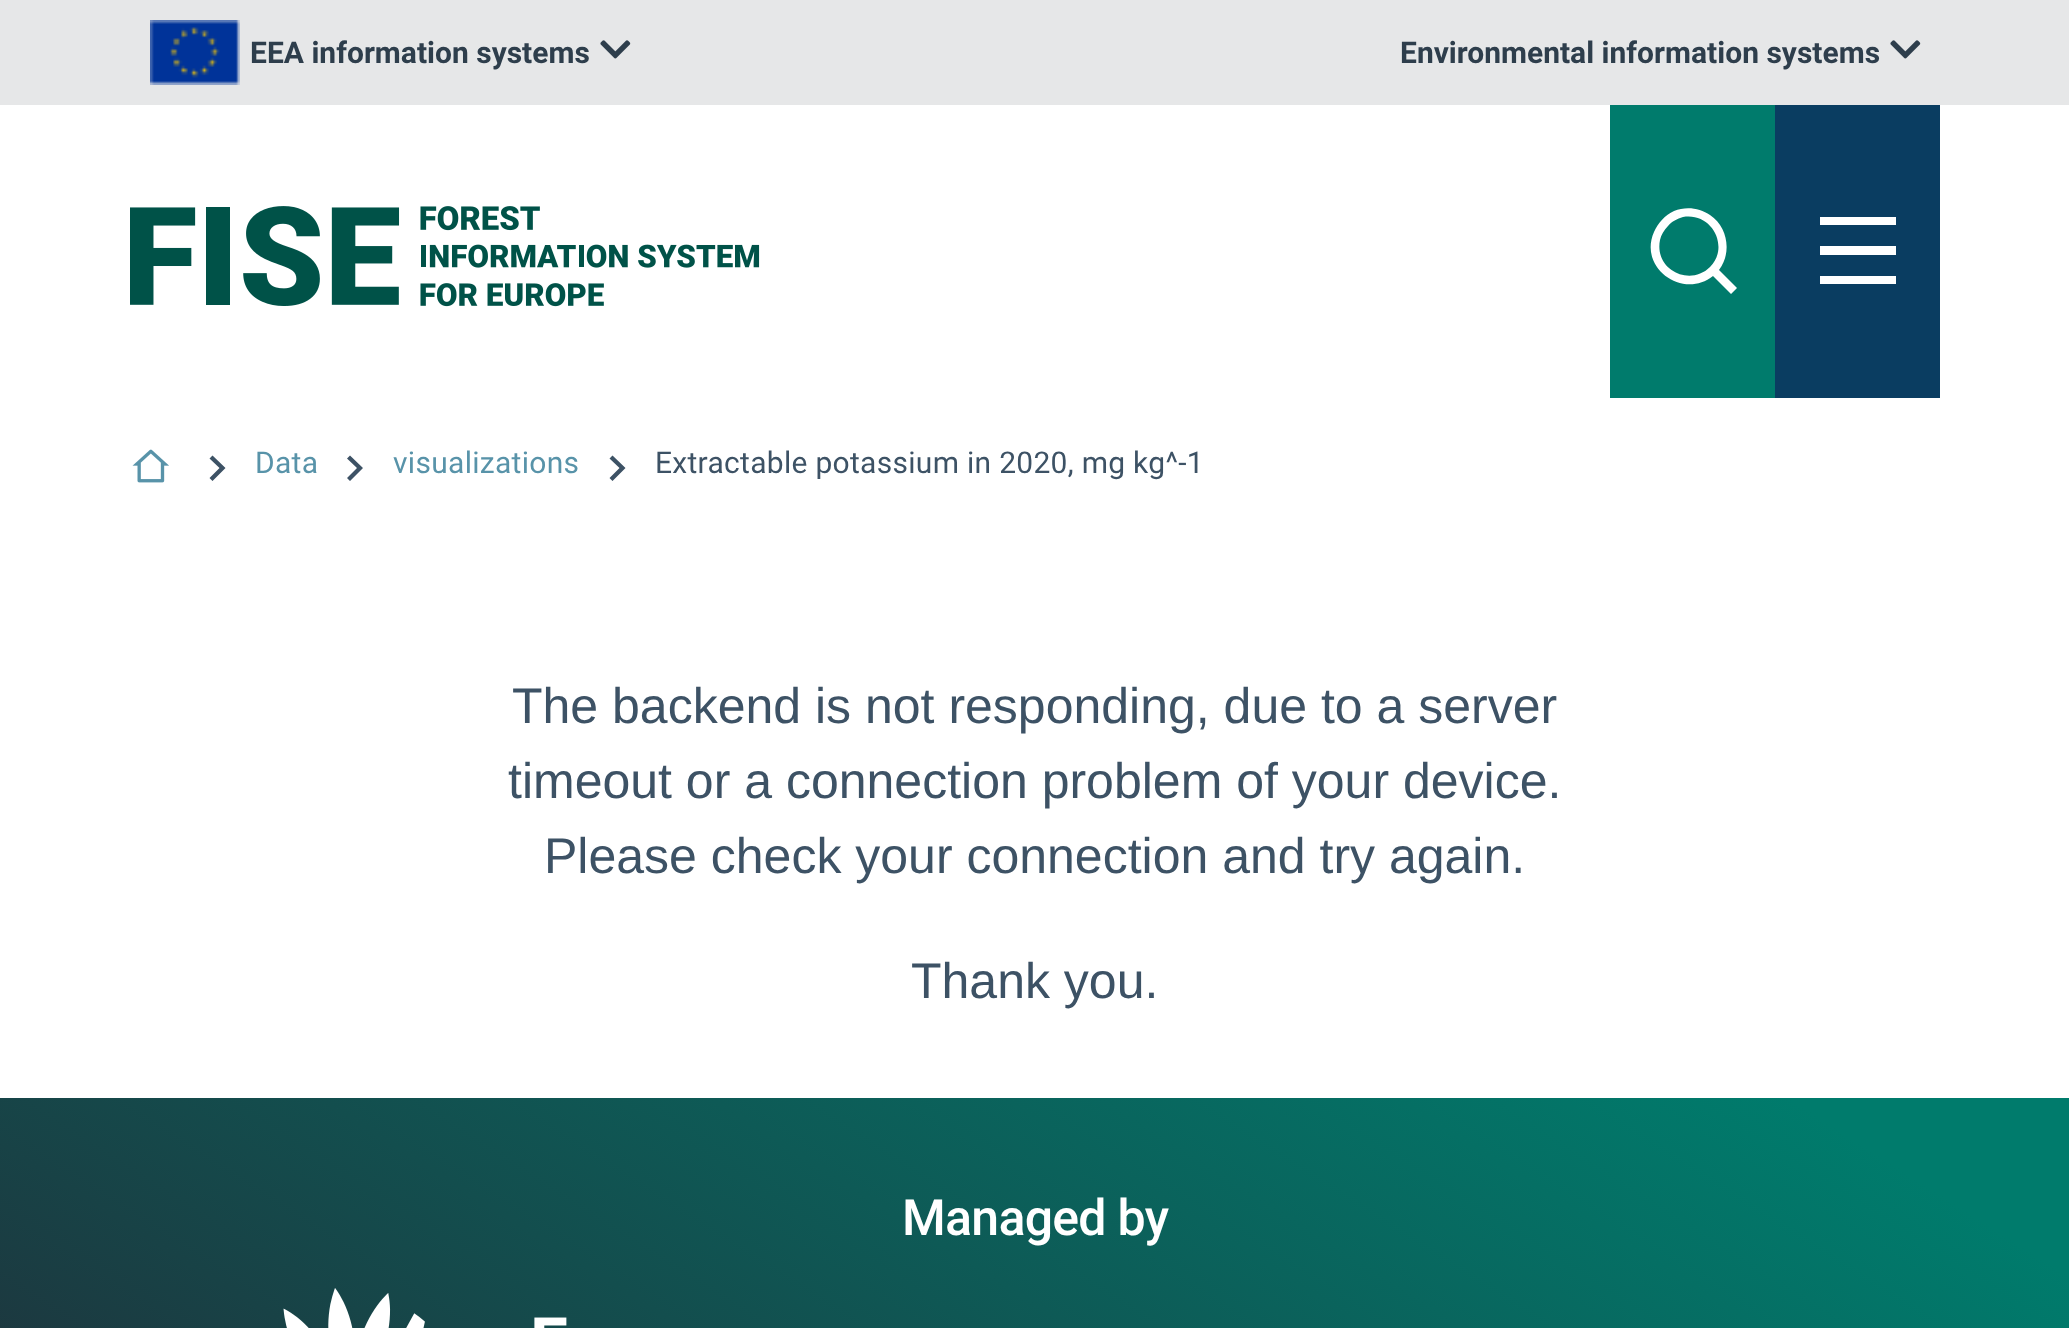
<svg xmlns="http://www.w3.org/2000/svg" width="2069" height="1328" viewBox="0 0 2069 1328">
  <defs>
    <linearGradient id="g1" gradientUnits="userSpaceOnUse" x1="1613" y1="808" x2="457" y2="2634"><stop offset="0.07" stop-color="rgb(0,123,108)"/><stop offset="0.7" stop-color="rgb(33,45,56)"/><stop offset="0.98" stop-color="rgb(33,45,56)"/></linearGradient>
  </defs>
  <rect width="100%" height="100%" fill="rgb(255,255,255)"/>
  <rect x="0" y="0" width="2069" height="105" fill="rgb(230,231,232)"/>
  <image x="150" y="20" width="90" height="65" href="pic1.png"/>
  <text x="250" y="63" font-family="Roboto" font-size="30" font-weight="bold" fill="rgb(46,62,76)">EEA information systems</text>
  <image x="600" y="40" width="31" height="19" href="pic2.png"/>
  <text x="1400" y="63" font-family="Roboto" font-size="30" font-weight="bold" fill="rgb(46,62,76)">Environmental information systems</text>
  <image x="1890" y="40" width="31" height="19" href="pic2.png"/>
  <image x="130" y="206" width="630" height="101" href="pic3.png"/>
  <rect x="1610" y="105" width="165" height="293" fill="rgb(0,123,108)"/>
  <path d="M1719 270L1737 288L1731 294L1713 276C1683 300 1638 268 1654 232C1658 223 1665 215 1674 211C1686 206 1700 208 1710 215C1728 227 1732 253 1719 270ZM1710 267C1730 247 1712 212 1683 217C1677 219 1672 221 1668 226C1664 230 1661 235 1660 240C1654 270 1690 287 1710 267Z" fill="rgb(255,255,255)"/>
  <rect x="1775" y="105" width="165" height="293" fill="rgb(10,61,97)"/>
  <path d="M1820 217H1896V225H1820ZM1820 246H1896V255H1820ZM1820 276H1896V284H1820Z" fill="rgb(255,255,255)"/>
  <image x="132" y="449" width="37" height="34" href="pic4.png"/>
  <path d="M219.5 468L209.5 458.5L212.5 455.5L225.5 468L212.5 481L209.5 478Z" fill="rgb(61,82,101)"/>
  <text x="255" y="473" font-family="Roboto" font-size="30" letter-spacing="0.3" fill="rgb(88,147,169)">Data</text>
  <path d="M357 468L347 458.5L350 455.5L363 468L350 481L347 478Z" fill="rgb(61,82,101)"/>
  <text x="393" y="473" font-family="Roboto" font-size="30" letter-spacing="0.3" fill="rgb(88,147,169)">visualizations</text>
  <path d="M619.5 468L609.5 458.5L612.5 455.5L625.5 468L612.5 481L609.5 478Z" fill="rgb(61,82,101)"/>
  <text x="655" y="473" font-family="Roboto" font-size="30" letter-spacing="0.3" fill="rgb(61,82,101)">Extractable potassium in 2020, mg kg^-1</text>
  <g font-family="Liberation Sans" font-size="50" fill="rgb(61,82,101)">
    <text x="512" y="723">The backend is not responding, due to a server</text>
    <text x="508" y="798">timeout or a connection problem of your device.</text>
    <text x="544" y="873">Please check your connection and try again.</text>
    <text x="911" y="998">Thank you.</text>
  </g>
  <rect x="0" y="1098" width="2069" height="230" fill="url(#g1)"/>
  <text x="902" y="1235" font-family="Roboto" font-size="50" font-weight="500" letter-spacing="-0.75" fill="rgb(255,255,255)">Managed by</text>
  <image x="283" y="1288" width="284" height="40" href="pic5.png"/>
</svg>
